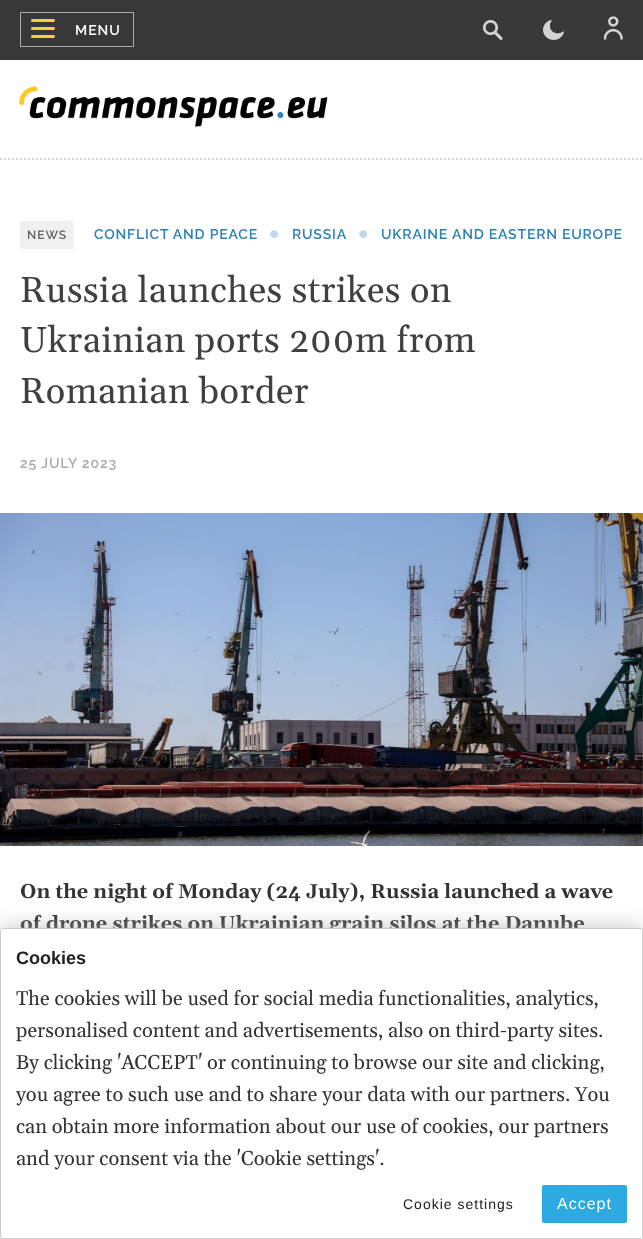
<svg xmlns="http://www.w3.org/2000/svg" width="643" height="1239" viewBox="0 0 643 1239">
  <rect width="100%" height="100%" fill="rgb(255,255,255)"/>
  <rect x="0" y="0" width="643" height="60" fill="rgb(56,56,56)"/>
  <rect x="20.5" y="12.5" width="113" height="34" fill="none" stroke="rgb(170,170,170)"/>
  <rect x="31" y="27" width="24" height="3" rx="1.5" fill="rgb(250,206,54)"/>
  <rect x="31" y="19" width="24" height="3" rx="1.5" fill="rgb(250,206,54)"/>
  <rect x="31" y="35" width="24" height="3" rx="1.5" fill="rgb(250,206,54)"/>
  <text x="75" y="35" font-family="Raleway" font-size="14" font-weight="600" letter-spacing="1" fill="rgb(255,255,255)">MENU</text>
  <image x="483" y="20" width="20" height="20" href="pic1.png"/>
  <image x="543" y="20" width="21" height="20" href="pic2.png"/>
  <image x="603" y="16" width="20" height="24" href="pic3.png"/>
  <path d="M0 159H643" fill="none" stroke="rgb(213,213,213)" stroke-width="2" stroke-dasharray="2 2"/>
  <image x="19" y="86" width="309" height="41" href="pic4.png"/>
  <path d="M20 221H69C72 221 74 223 74 226V249H20Z" fill="rgb(240,240,240)"/>
  <text x="27" y="239" font-family="Raleway" font-size="12" font-weight="600" letter-spacing="1" fill="rgb(99,99,99)">NEWS</text>
  <text x="94" y="239" font-family="Raleway" font-size="14" font-weight="600" letter-spacing="0.8" fill="rgb(44,128,184)">CONFLICT AND PEACE</text>
  <text x="267" y="248" font-family="Raleway" font-size="40" font-weight="600" letter-spacing="0.8" fill="rgb(192,217,234)">•</text>
  <text x="292" y="239" font-family="Raleway" font-size="14" font-weight="600" letter-spacing="0.8" fill="rgb(44,128,184)">RUSSIA</text>
  <text x="356" y="248" font-family="Raleway" font-size="40" font-weight="600" letter-spacing="0.8" fill="rgb(192,217,234)">•</text>
  <text x="381" y="239" font-family="Raleway" font-size="14" font-weight="600" letter-spacing="0.8" fill="rgb(44,128,184)">UKRAINE AND EASTERN EUROPE</text>
  <g font-family="Gelasio" font-size="36" letter-spacing="0.5" fill="rgb(63,64,64)">
    <text>
      <tspan x="20" y="302">Russia launches strikes on</tspan>
      <tspan x="20" y="352">Ukrainian ports 200m from</tspan>
      <tspan x="20" y="403">Romanian border</tspan>
    </text>
  </g>
  <text x="20" y="468" font-family="Raleway" font-size="14" font-weight="600" letter-spacing="0.9" fill="rgb(170,170,170)">25 JULY 2023</text>
  <image x="0" y="513" width="643" height="333" href="pic5.png"/>
  <g font-family="Gelasio" font-size="20" font-weight="bold" fill="rgb(51,51,51)">
    <text>
      <tspan x="20" y="898">On the night of Monday (24 July), Russia launched a wave</tspan>
      <tspan x="20" y="930">of drone strikes on Ukrainian grain silos at the Danube</tspan>
    </text>
  </g>
  <rect x="0" y="930" width="643" height="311" rx="3" fill="rgba(174,174,174,0.86)" filter="blur(12px)"/>
  <rect x="0.5" y="928.5" width="642" height="310" rx="2.5" fill="rgb(255,255,255)" stroke="rgb(204,204,204)"/>
  <text x="16" y="964" font-family="Liberation Sans" font-size="18" font-weight="bold" fill="rgb(33,33,33)">Cookies</text>
  <g font-family="Gelasio" font-size="20" fill="rgb(51,51,51)">
    <text>
      <tspan x="16" y="1005">The cookies will be used for social media functionalities, analytics,</tspan>
      <tspan x="16" y="1037">personalised content and advertisements, also on third-party sites.</tspan>
      <tspan x="16" y="1069">By clicking 'ACCEPT' or continuing to browse our site and clicking,</tspan>
      <tspan x="16" y="1101">you agree to such use and to share your data with our partners. You</tspan>
      <tspan x="16" y="1133">can obtain more information about our use of cookies, our partners</tspan>
      <tspan x="16" y="1165">and your consent via the 'Cookie settings'.</tspan>
    </text>
  </g>
  <text x="403" y="1209" font-family="Liberation Sans" font-size="14" letter-spacing="1" fill="rgb(33,33,33)">Cookie settings</text>
  <rect x="542" y="1185" width="85" height="38" rx="2" fill="rgb(45,170,225)"/>
  <text x="557" y="1209" font-family="Liberation Sans" font-size="16" letter-spacing="1" fill="rgb(255,255,255)">Accept</text>
</svg>
